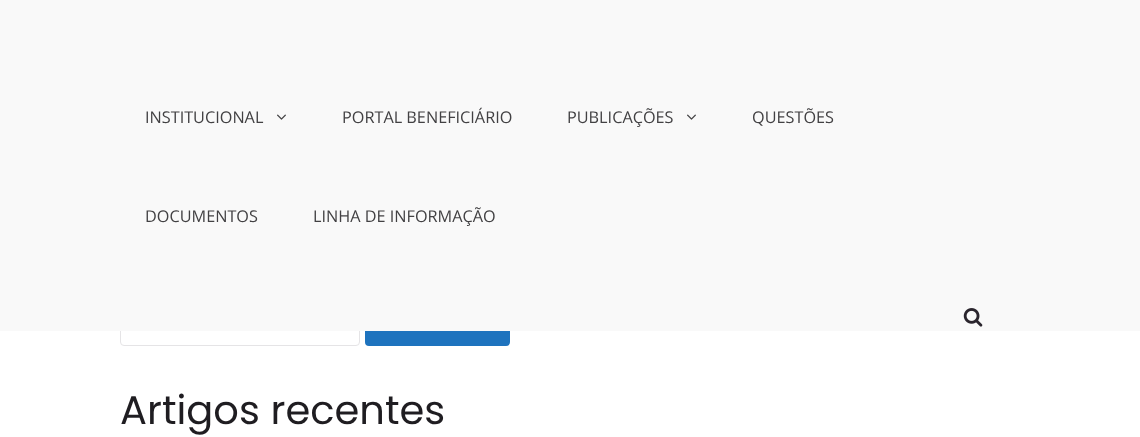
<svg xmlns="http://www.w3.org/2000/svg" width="1140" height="437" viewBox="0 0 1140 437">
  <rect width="100%" height="100%" fill="rgb(255,255,255)"/>
  <rect x="120.5" y="296.5" width="239" height="49" rx="3.5" fill="none" stroke="rgb(229,228,230)"/>
  <rect x="365" y="296" width="145" height="50" rx="4" fill="rgb(30,115,190)"/>
  <rect x="0" y="0" width="1140" height="331" fill="rgb(249,249,249)"/>
  <text x="145" y="123" font-family="Open Sans" font-size="16.25" fill="rgb(66,65,67)">INSTITUCIONAL</text>
  <image x="277" y="114" width="9" height="6" href="pic1.png"/>
  <g font-family="Open Sans" font-size="16.25" fill="rgb(66,65,67)">
    <text x="342" y="123">PORTAL BENEFICIÁRIO</text>
    <text x="567" y="123">PUBLICAÇÕES</text>
  </g>
  <image x="687" y="114" width="9" height="6" href="pic1.png"/>
  <g font-family="Open Sans" font-size="16.25" fill="rgb(66,65,67)">
    <text x="752" y="123">QUESTÕES</text>
    <text x="145" y="222">DOCUMENTOS</text>
    <text x="313" y="222">LINHA DE INFORMAÇÃO</text>
  </g>
  <image x="963" y="308" width="20" height="19" href="pic2.png"/>
  <text x="120" y="424" font-family="Poppins" font-size="40" fill="rgb(31,29,33)">Artigos recentes</text>
</svg>
